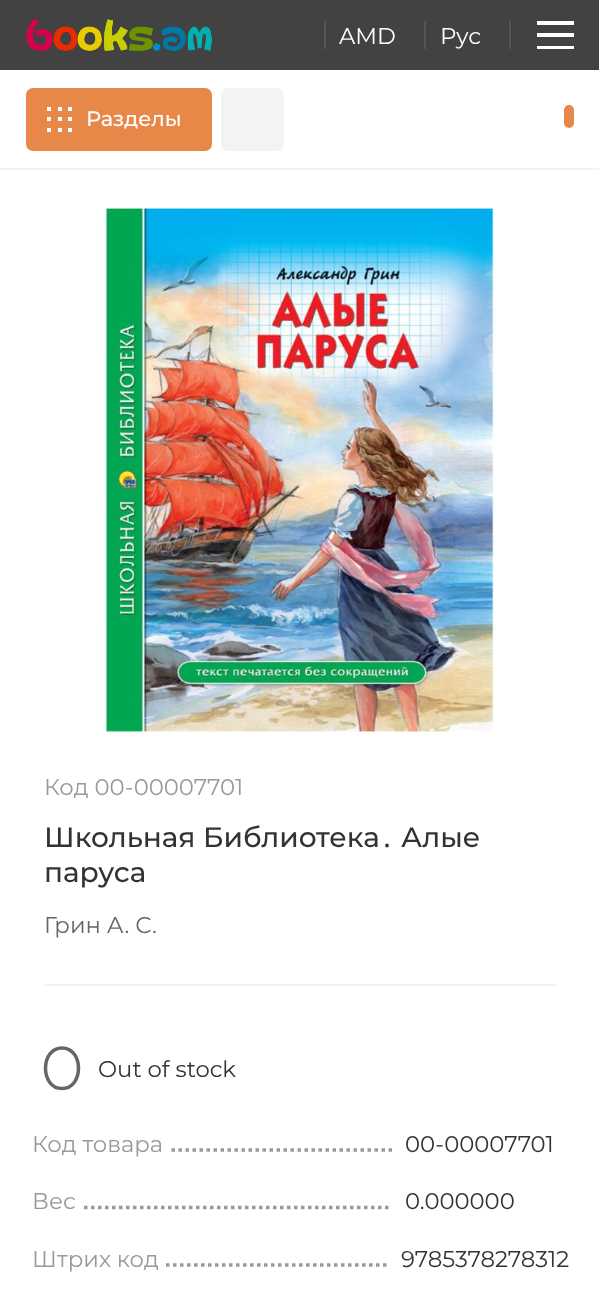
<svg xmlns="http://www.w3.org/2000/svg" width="599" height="1304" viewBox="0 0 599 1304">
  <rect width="100%" height="100%" fill="rgb(255,255,255)"/>
  <rect x="0" y="0" width="599" height="70" fill="rgb(66,66,66)"/>
  <rect x="324" y="21" width="2" height="28" fill="rgb(85,85,85)"/>
  <text x="339" y="44" font-family="Montserrat" font-size="22.75" fill="rgb(255,255,255)">AMD</text>
  <rect x="424" y="21" width="2" height="28" fill="rgb(85,85,85)"/>
  <text x="440" y="44" font-family="Montserrat" font-size="22.75" fill="rgb(255,255,255)">Рус</text>
  <rect x="509" y="21" width="2" height="28" fill="rgb(85,85,85)"/>
  <rect x="537" y="21" width="37" height="4" fill="rgb(255,255,255)"/>
  <rect x="537" y="33" width="37" height="4" fill="rgb(255,255,255)"/>
  <rect x="537" y="46" width="37" height="3" fill="rgb(255,255,255)"/>
  <rect x="0" y="168" width="599" height="2" fill="rgb(242,243,245)"/>
  <image x="26" y="19" width="186" height="32" href="pic1.png"/>
  <rect x="26" y="88" width="186" height="63" rx="7" fill="rgb(232,136,72)"/>
  <rect x="68" y="117" width="4" height="4" fill="rgb(255,255,255)"/>
  <rect x="58" y="107" width="4" height="4" fill="rgb(255,255,255)"/>
  <rect x="47" y="117" width="4" height="4" fill="rgb(255,255,255)"/>
  <rect x="58" y="128" width="4" height="4" fill="rgb(255,255,255)"/>
  <rect x="68" y="128" width="4" height="4" fill="rgb(255,255,255)"/>
  <rect x="68" y="107" width="4" height="4" fill="rgb(255,255,255)"/>
  <rect x="47" y="128" width="4" height="4" fill="rgb(255,255,255)"/>
  <rect x="47" y="107" width="4" height="4" fill="rgb(255,255,255)"/>
  <rect x="58" y="117" width="4" height="4" fill="rgb(255,255,255)"/>
  <text x="86" y="126" font-family="Montserrat" font-size="21" font-weight="500" fill="rgb(255,255,255)">Разделы</text>
  <rect x="221" y="88" width="63" height="63" rx="7" fill="rgb(242,243,245)"/>
  <rect x="564" y="105" width="10" height="23" rx="5" fill="rgb(232,136,72)"/>
  <image x="101" y="208" width="393" height="524" href="pic2.png"/>
  <text x="44" y="795" font-family="Montserrat" font-size="22.75" fill="rgb(153,153,153)">Код 00-00007701</text>
  <text x="44" y="847" font-family="Montserrat" font-size="28" font-weight="500" fill="rgb(51,51,51)">Школьная Библиотека</text>
  <text x="380" y="847" font-family="Noto Sans" font-size="28" fill="rgb(51,51,51)">․</text>
  <g font-family="Montserrat" font-size="28" font-weight="500" fill="rgb(51,51,51)">
    <text x="401" y="847">Алые</text>
    <text x="44" y="882">паруса</text>
  </g>
  <rect x="44" y="984" width="513" height="2" fill="rgb(242,243,245)"/>
  <text x="44" y="933" font-family="Montserrat" font-size="22.75" fill="rgb(102,102,102)">Грин А. С.</text>
  <path d="M62 1048C84 1048 84 1088.5 62 1088.5C40 1088.5 40 1048 62 1048Z" fill="none" stroke="rgb(102,102,102)" stroke-width="3.5"/>
  <text x="98" y="1077" font-family="Montserrat" font-size="22.75" fill="rgb(51,51,51)">Out of stock</text>
  <text x="32" y="1152" font-family="Montserrat" font-size="22.75" fill="rgb(153,153,153)">Код товара</text>
  <path d="M171.5 1150H392" fill="none" stroke="rgb(153,153,153)" stroke-width="3.5" stroke-dasharray="3.5 3.5"/>
  <text x="405" y="1152" font-family="Montserrat" font-size="22.75" fill="rgb(51,51,51)">00-00007701</text>
  <text x="32" y="1209" font-family="Montserrat" font-size="22.75" fill="rgb(153,153,153)">Вес</text>
  <path d="M84 1207.5H392" fill="none" stroke="rgb(153,153,153)" stroke-width="3.5" stroke-dasharray="3.5 3.5"/>
  <text x="405" y="1209" font-family="Montserrat" font-size="22.75" fill="rgb(51,51,51)">0.000000</text>
  <text x="32" y="1267" font-family="Montserrat" font-size="22.75" fill="rgb(153,153,153)">Штрих код</text>
  <path d="M166 1265H388.5" fill="none" stroke="rgb(153,153,153)" stroke-width="3.5" stroke-dasharray="3.5 3.5"/>
  <text x="401" y="1267" font-family="Montserrat" font-size="22.75" fill="rgb(51,51,51)">9785378278312</text>
</svg>
